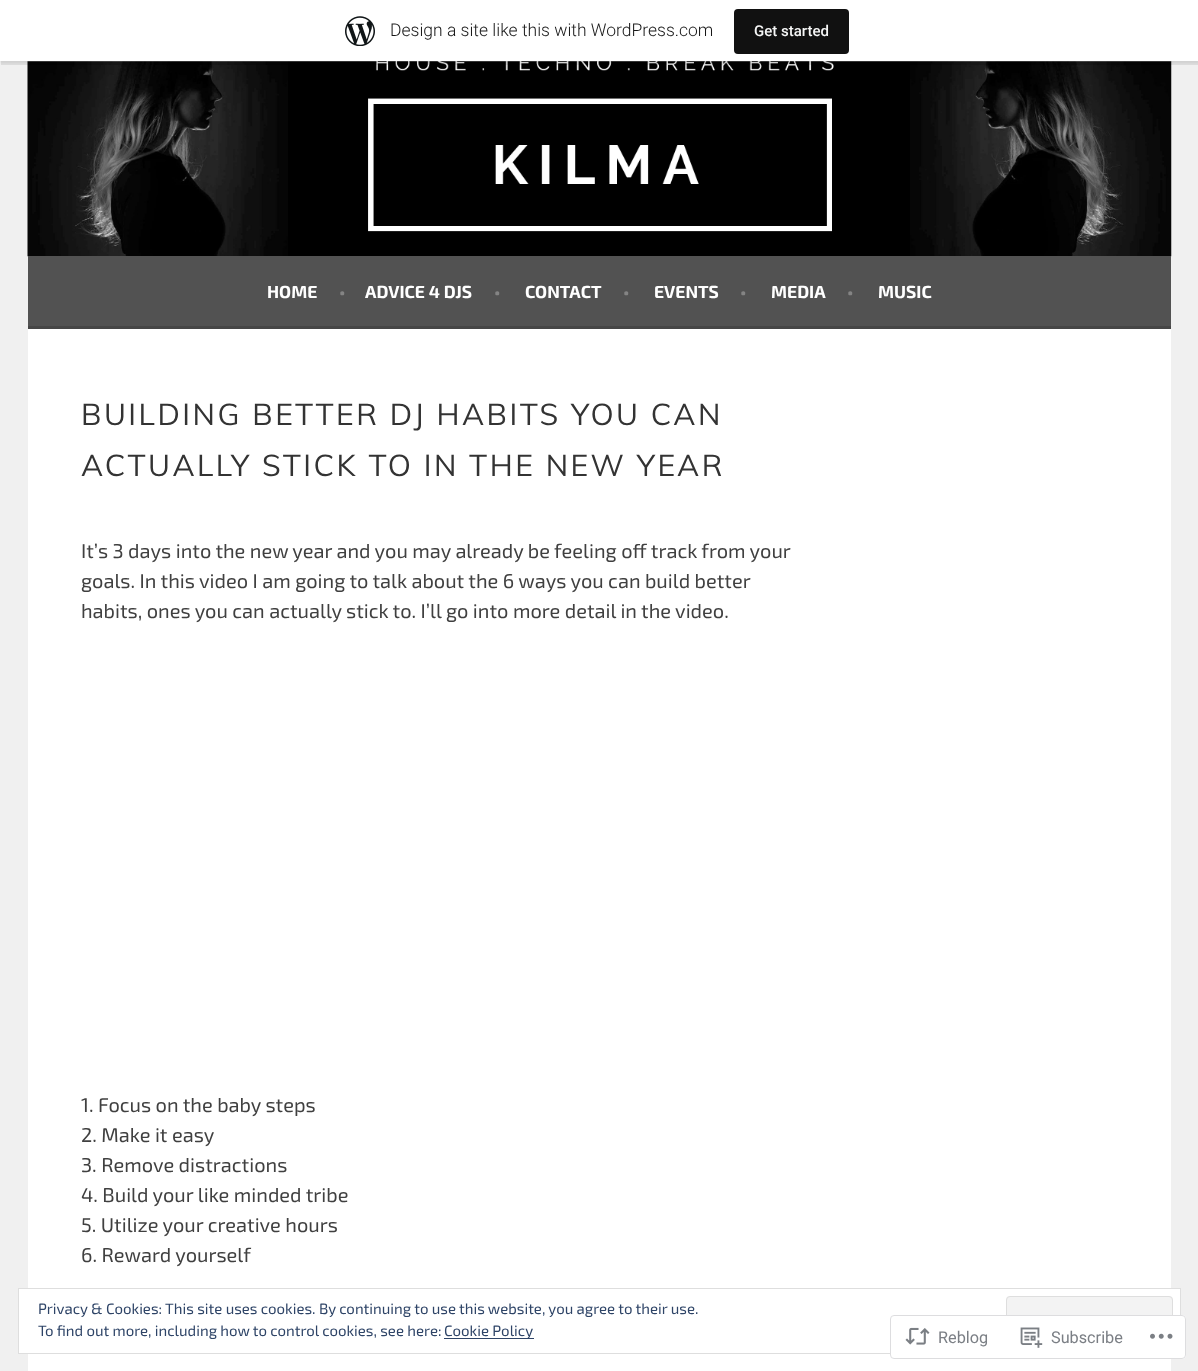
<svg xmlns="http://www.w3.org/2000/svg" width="1198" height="1371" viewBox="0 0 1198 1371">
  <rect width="100%" height="100%" fill="rgb(240,240,240)"/>
  <image x="27" y="61" width="1145" height="196" href="pic2.png"/>
  <rect x="0" y="1" width="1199" height="62" fill="rgba(0,0,0,0.05)" filter="blur(1px)"/>
  <path d="M1 61V65H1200V4H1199V61Z" fill="rgba(0,0,0,0.08)"/>
  <rect x="0" y="0" width="1198" height="61" fill="rgb(255,255,255)"/>
  <image x="345" y="16" width="30" height="30" href="pic1.png"/>
  <text x="390" y="36" font-family="Roboto" font-size="17.5" font-weight="300" fill="rgb(23,23,23)">Design a site like this with WordPress.com</text>
  <rect x="734" y="9" width="115" height="45" rx="4" fill="rgb(17,17,17)"/>
  <text x="754" y="36" font-family="Roboto" font-size="15" font-weight="500" fill="rgb(246,247,247)">Get started</text>
  <rect x="28" y="256" width="1143" height="70" fill="rgb(82,82,82)"/>
  <rect x="28" y="326" width="1143" height="3" fill="rgb(70,70,70)"/>
  <text x="267" y="298" font-family="'Exo 2'" font-size="17.5" font-weight="bold" fill="rgb(255,255,255)">HOME</text>
  <text x="339" y="298" font-family="'Exo 2'" font-size="17.5" font-weight="bold" fill="rgb(132,132,132)">•</text>
  <text x="365" y="298" font-family="'Exo 2'" font-size="17.5" font-weight="bold" fill="rgb(255,255,255)">ADVICE 4 DJS</text>
  <text x="494" y="298" font-family="'Exo 2'" font-size="17.5" font-weight="bold" fill="rgb(132,132,132)">•</text>
  <text x="525" y="298" font-family="'Exo 2'" font-size="17.5" font-weight="bold" fill="rgb(255,255,255)">CONTACT</text>
  <text x="623" y="298" font-family="'Exo 2'" font-size="17.5" font-weight="bold" fill="rgb(132,132,132)">•</text>
  <text x="654" y="298" font-family="'Exo 2'" font-size="17.5" font-weight="bold" fill="rgb(255,255,255)">EVENTS</text>
  <text x="740" y="298" font-family="'Exo 2'" font-size="17.5" font-weight="bold" fill="rgb(132,132,132)">•</text>
  <text x="771" y="298" font-family="'Exo 2'" font-size="17.5" font-weight="bold" fill="rgb(255,255,255)">MEDIA</text>
  <text x="847" y="298" font-family="'Exo 2'" font-size="17.5" font-weight="bold" fill="rgb(132,132,132)">•</text>
  <text x="878" y="298" font-family="'Exo 2'" font-size="17.5" font-weight="bold" fill="rgb(255,255,255)">MUSIC</text>
  <rect x="28" y="329" width="1143" height="1042" fill="rgb(255,255,255)"/>
  <g font-family="Muli" font-size="30" letter-spacing="2.5" fill="rgb(51,51,51)">
    <text>
      <tspan x="81" y="425">BUILDING BETTER DJ HABITS YOU CAN</tspan>
      <tspan x="81" y="476">ACTUALLY STICK TO IN THE NEW YEAR</tspan>
    </text>
  </g>
  <g font-family="'Exo 2'" font-size="20" fill="rgb(64,64,64)">
    <text>
      <tspan x="81" y="558">It’s 3 days into the new year and you may already be feeling off track from your</tspan>
      <tspan x="81" y="588">goals. In this video I am going to talk about the 6 ways you can build better</tspan>
      <tspan x="81" y="618">habits, ones you can actually stick to. I’ll go into more detail in the video.</tspan>
    </text>
    <text>
      <tspan x="81" y="1112">1. Focus on the baby steps</tspan>
      <tspan x="81" y="1142">2. Make it easy</tspan>
      <tspan x="81" y="1172">3. Remove distractions</tspan>
      <tspan x="81" y="1202">4. Build your like minded tribe</tspan>
      <tspan x="81" y="1232">5. Utilize your creative hours</tspan>
      <tspan x="81" y="1262">6. Reward yourself</tspan>
    </text>
  </g>
  <rect x="18.5" y="1288.5" width="1162" height="65" fill="rgb(255,255,255)" stroke="rgb(222,222,222)"/>
  <text x="38" y="1314" font-family="'Exo 2'" font-size="15" fill="rgb(46,68,103)">Privacy &amp; Cookies: This site uses cookies. By continuing to use this website, you agree to their use.</text>
  <rect x="1006" y="1296" width="167" height="49" rx="4" fill="rgb(243,243,243)"/>
  <path d="M1008 1339V1342C1008 1343 1009 1344 1010 1344H1168C1170 1344 1171 1343 1171 1342V1339C1171 1340 1170 1341 1169 1341H1010C1009 1341 1008 1340 1008 1339Z" fill="rgb(219,219,219)"/>
  <rect x="1006.5" y="1296.5" width="166" height="48" rx="3.5" fill="none" stroke="rgb(222,222,222)"/>
  <text x="38" y="1336" font-family="'Exo 2'" font-size="15" fill="rgb(46,68,103)">To find out more, including how to control cookies, see here:</text>
  <rect x="444" y="1338" width="90" height="1" fill="rgb(46,68,103)"/>
  <text x="444" y="1336" font-family="'Exo 2'" font-size="15" fill="rgb(46,68,103)">Cookie Policy</text>
  <rect x="890" y="1315" width="296" height="44" rx="4" fill="rgba(255,255,255,0.98)"/>
  <rect x="890.5" y="1315.5" width="295" height="43" rx="3.5" fill="none" stroke="rgba(220,220,222,0.98)"/>
  <image x="905" y="1327" width="25" height="18" href="pic3.png"/>
  <text x="938" y="1343" font-family="Roboto" font-size="16.25" fill="rgb(123,127,133)">Reblog</text>
  <image x="1020" y="1327" width="23" height="21" href="pic4.png"/>
  <text x="1051" y="1343" font-family="Roboto" font-size="16.25" fill="rgb(123,127,133)">Subscribe</text>
  <image x="1150" y="1333" width="23" height="6" href="pic5.png"/>
</svg>
